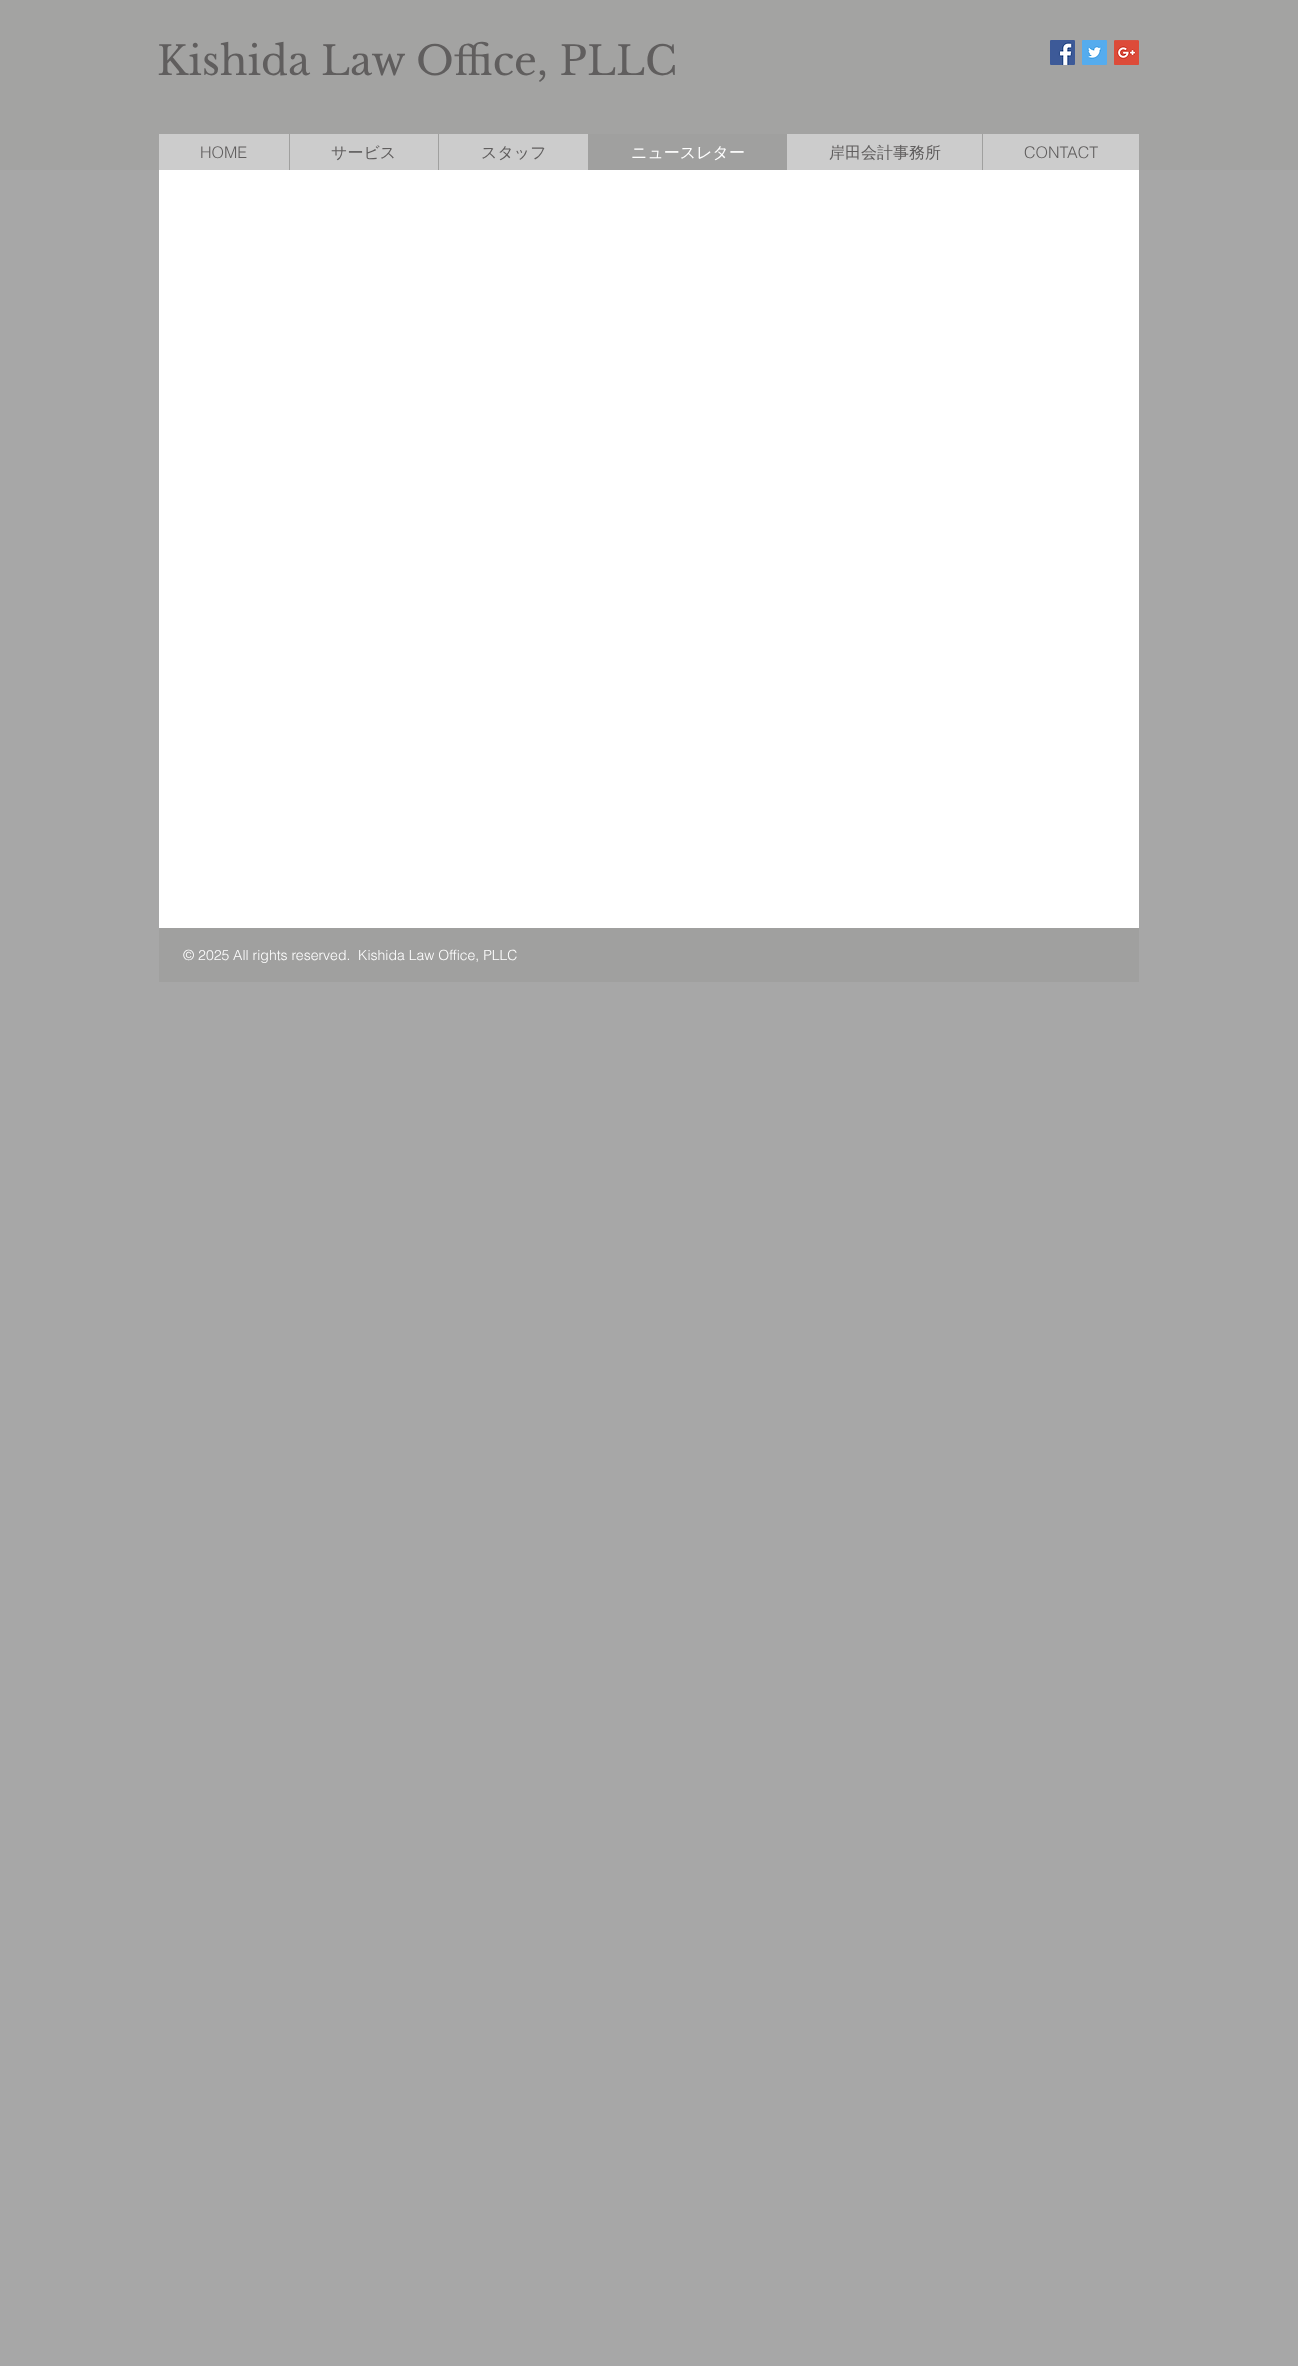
<svg xmlns="http://www.w3.org/2000/svg" width="1298" height="2366" viewBox="0 0 1298 2366">
  <rect width="100%" height="100%" fill="rgb(167,167,167)"/>
  <rect x="0" y="0" width="1298" height="170" fill="rgb(163,163,162)"/>
  <g font-family="Libre Baskerville" font-size="40" fill="rgb(96,94,94)">
    <text x="157" y="75">Kishida</text>
    <text x="321" y="75">Law Office, PLLC</text>
  </g>
  <image x="1050" y="40" width="25" height="25" href="pic1.png"/>
  <image x="1082" y="40" width="25" height="25" href="pic2.png"/>
  <image x="1114" y="40" width="25" height="25" href="pic3.png"/>
  <rect x="159" y="134" width="980" height="36" fill="rgb(204,204,204)"/>
  <text x="200" y="158" font-family="helvetica" font-size="16" font-weight="300" fill="rgb(96,94,94)">HOME</text>
  <rect x="289" y="134" width="1" height="36" fill="rgb(160,160,159)"/>
  <text x="331" y="158" font-family="WenQuanYi Zen Hei" font-size="16" font-weight="500" fill="rgb(96,94,94)">サービス</text>
  <rect x="438" y="134" width="1" height="36" fill="rgb(160,160,159)"/>
  <text x="481" y="158" font-family="WenQuanYi Zen Hei" font-size="16" font-weight="500" fill="rgb(96,94,94)">スタッフ</text>
  <rect x="588" y="134" width="199" height="36" fill="rgb(160,160,159)"/>
  <text x="631" y="158" font-family="WenQuanYi Zen Hei" font-size="16" font-weight="500" fill="rgb(255,255,255)">ニュースレター</text>
  <text x="829" y="158" font-family="WenQuanYi Zen Hei" font-size="16" font-weight="500" fill="rgb(96,94,94)">岸田会計事務所</text>
  <rect x="982" y="134" width="1" height="36" fill="rgb(160,160,159)"/>
  <text x="1024" y="158" font-family="helvetica" font-size="16" font-weight="300" fill="rgb(96,94,94)">CONTACT</text>
  <rect x="159" y="170" width="980" height="758" fill="rgb(255,255,255)"/>
  <rect x="159" y="928" width="980" height="54" fill="rgb(160,160,159)"/>
  <text x="183" y="960" font-family="helvetica" font-size="14" font-weight="300" fill="rgb(255,255,255)" xml:space="preserve">© 2025 All rights reserved.  Kishida Law Office, PLLC</text>
</svg>
